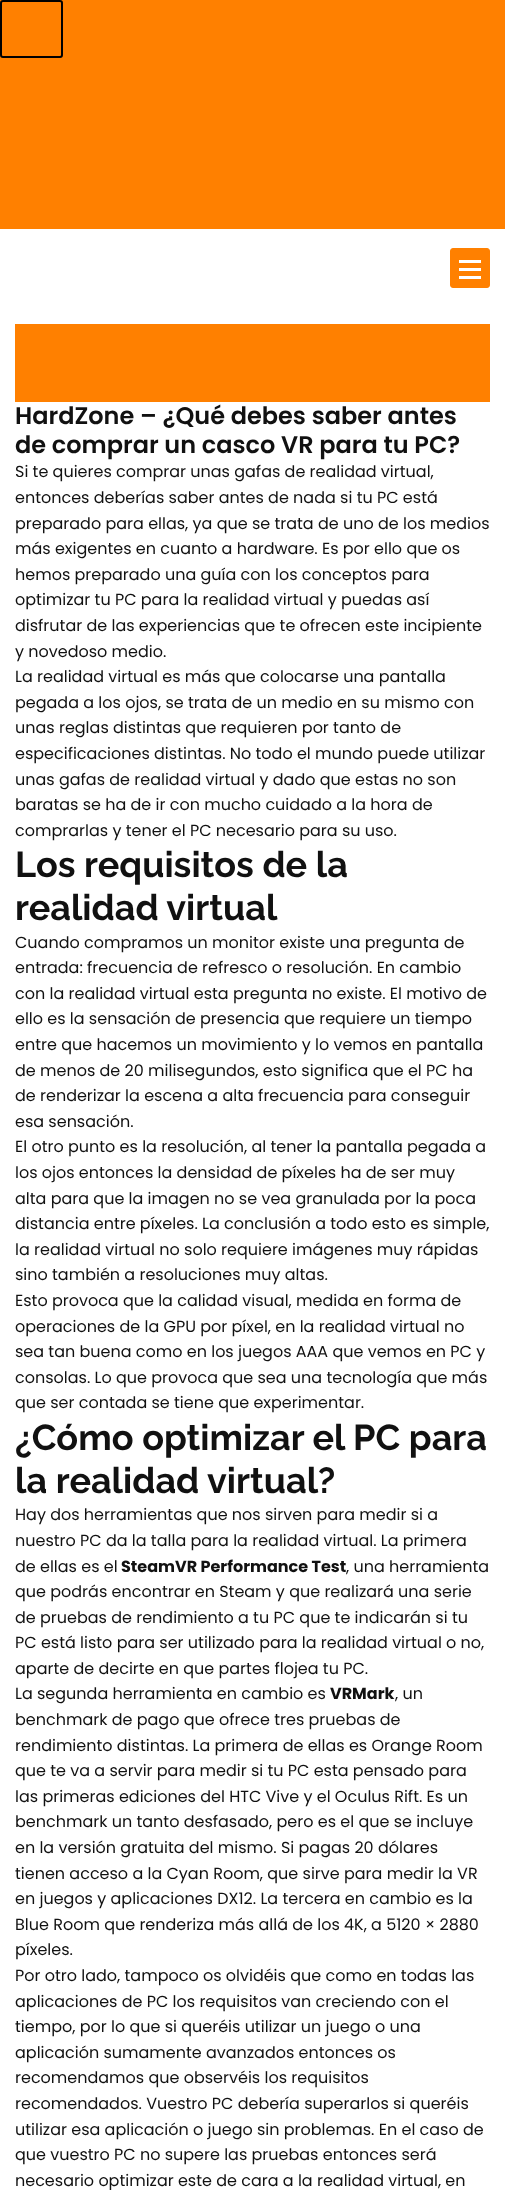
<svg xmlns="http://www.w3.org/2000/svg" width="505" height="2190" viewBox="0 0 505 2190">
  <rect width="100%" height="100%" fill="rgb(255,255,255)"/>
  <rect x="0" y="0" width="505" height="229" fill="rgb(255,128,0)"/>
  <rect x="1" y="1" width="61" height="56" rx="2" fill="none" stroke="rgb(0,0,0)" stroke-width="2"/>
  <rect x="450.5" y="248.5" width="39" height="39" rx="2.5" fill="rgb(255,128,0)" stroke="rgb(255,128,0)"/>
  <rect x="459" y="260" width="22" height="3" fill="rgb(255,255,255)"/>
  <rect x="459" y="268" width="22" height="3" fill="rgb(255,255,255)"/>
  <rect x="459" y="276" width="22" height="3" fill="rgb(255,255,255)"/>
  <rect x="15" y="324" width="475" height="78" fill="rgb(255,128,0)"/>
  <g font-family="Poppins" font-size="24" font-weight="600" fill="rgb(17,17,17)">
    <text>
      <tspan x="15" y="424">HardZone – ¿Qué debes saber antes</tspan>
      <tspan x="15" y="453">de comprar un casco VR para tu PC?</tspan>
    </text>
  </g>
  <g font-family="Poppins" font-size="16" fill="rgb(17,17,17)">
    <text>
      <tspan x="15" y="477">Si te quieres comprar unas gafas de realidad virtual,</tspan>
      <tspan x="15" y="503">entonces deberías saber antes de nada si tu PC está</tspan>
      <tspan x="15" y="529">preparado para ellas, ya que se trata de uno de los medios</tspan>
      <tspan x="15" y="554">más exigentes en cuanto a hardware. Es por ello que os</tspan>
      <tspan x="15" y="580">hemos preparado una guía con los conceptos para</tspan>
      <tspan x="15" y="605">optimizar tu PC para la realidad virtual y puedas así</tspan>
      <tspan x="15" y="631">disfrutar de las experiencias que te ofrecen este incipiente</tspan>
      <tspan x="15" y="657">y novedoso medio.</tspan>
      <tspan x="15" y="682">La realidad virtual es más que colocarse una pantalla</tspan>
      <tspan x="15" y="708">pegada a los ojos, se trata de un medio en su mismo con</tspan>
      <tspan x="15" y="733">unas reglas distintas que requieren por tanto de</tspan>
      <tspan x="15" y="759">especificaciones distintas. No todo el mundo puede utilizar</tspan>
      <tspan x="15" y="785">unas gafas de realidad virtual y dado que estas no son</tspan>
      <tspan x="15" y="810">baratas se ha de ir con mucho cuidado a la hora de</tspan>
      <tspan x="15" y="836">comprarlas y tener el PC necesario para su uso.</tspan>
    </text>
  </g>
  <g font-family="Raleway" font-size="36" font-weight="bold" fill="rgb(17,17,17)">
    <text>
      <tspan x="15" y="877">Los requisitos de la</tspan>
      <tspan x="15" y="920">realidad virtual</tspan>
    </text>
  </g>
  <g font-family="Poppins" font-size="16" fill="rgb(17,17,17)">
    <text>
      <tspan x="15" y="948">Cuando compramos un monitor existe una pregunta de</tspan>
      <tspan x="15" y="973">entrada: frecuencia de refresco o resolución. En cambio</tspan>
      <tspan x="15" y="999">con la realidad virtual esta pregunta no existe. El motivo de</tspan>
      <tspan x="15" y="1024">ello es la sensación de presencia que requiere un tiempo</tspan>
      <tspan x="15" y="1050">entre que hacemos un movimiento y lo vemos en pantalla</tspan>
      <tspan x="15" y="1076">de menos de 20 milisegundos, esto significa que el PC ha</tspan>
      <tspan x="15" y="1101">de renderizar la escena a alta frecuencia para conseguir</tspan>
      <tspan x="15" y="1127">esa sensación.</tspan>
      <tspan x="15" y="1152">El otro punto es la resolución, al tener la pantalla pegada a</tspan>
      <tspan x="15" y="1178">los ojos entonces la densidad de píxeles ha de ser muy</tspan>
      <tspan x="15" y="1204">alta para que la imagen no se vea granulada por la poca</tspan>
      <tspan x="15" y="1229">distancia entre píxeles. La conclusión a todo esto es simple,</tspan>
      <tspan x="15" y="1255">la realidad virtual no solo requiere imágenes muy rápidas</tspan>
      <tspan x="15" y="1280">sino también a resoluciones muy altas.</tspan>
      <tspan x="15" y="1306">Esto provoca que la calidad visual, medida en forma de</tspan>
      <tspan x="15" y="1332">operaciones de la GPU por píxel, en la realidad virtual no</tspan>
      <tspan x="15" y="1357">sea tan buena como en los juegos AAA que vemos en PC y</tspan>
      <tspan x="15" y="1383">consolas. Lo que provoca que sea una tecnología que más</tspan>
      <tspan x="15" y="1408">que ser contada se tiene que experimentar.</tspan>
    </text>
  </g>
  <g font-family="Raleway" font-size="36" font-weight="bold" fill="rgb(17,17,17)">
    <text>
      <tspan x="15" y="1450">¿Cómo optimizar el PC para</tspan>
      <tspan x="15" y="1493">la realidad virtual?</tspan>
    </text>
  </g>
  <g font-family="Poppins" font-size="16" fill="rgb(17,17,17)">
    <text>
      <tspan x="15" y="1520">Hay dos herramientas que nos sirven para medir si a</tspan>
      <tspan x="15" y="1546">nuestro PC da la talla para la realidad virtual. La primera</tspan>
      <tspan x="15" y="1572">de ellas es el</tspan>
    </text>
  </g>
  <text x="121" y="1572" font-family="Poppins" font-size="16" font-weight="bold" fill="rgb(17,17,17)">SteamVR Performance Test</text>
  <g font-family="Poppins" font-size="16" fill="rgb(17,17,17)">
    <text x="346" y="1572">, una herramienta</text>
    <text>
      <tspan x="15" y="1597">que podrás encontrar en Steam y que realizará una serie</tspan>
      <tspan x="15" y="1623">de pruebas de rendimiento a tu PC que te indicarán si tu</tspan>
      <tspan x="15" y="1648">PC está listo para ser utilizado para la realidad virtual o no,</tspan>
      <tspan x="15" y="1674">aparte de decirte en que partes flojea tu PC.</tspan>
      <tspan x="15" y="1699">La segunda herramienta en cambio es</tspan>
    </text>
  </g>
  <text x="330" y="1699" font-family="Poppins" font-size="16" font-weight="bold" fill="rgb(17,17,17)">VRMark</text>
  <g font-family="Poppins" font-size="16" fill="rgb(17,17,17)">
    <text x="395" y="1699">, un</text>
    <text>
      <tspan x="15" y="1725">benchmark de pago que ofrece tres pruebas de</tspan>
      <tspan x="15" y="1751">rendimiento distintas. La primera de ellas es Orange Room</tspan>
      <tspan x="15" y="1776">que te va a servir para medir si tu PC esta pensado para</tspan>
      <tspan x="15" y="1802">las primeras ediciones del HTC Vive y el Oculus Rift. Es un</tspan>
      <tspan x="15" y="1827">benchmark un tanto desfasado, pero es el que se incluye</tspan>
      <tspan x="15" y="1853">en la versión gratuita del mismo. Si pagas 20 dólares</tspan>
      <tspan x="15" y="1879">tienen acceso a la Cyan Room, que sirve para medir la VR</tspan>
      <tspan x="15" y="1904">en juegos y aplicaciones DX12. La tercera en cambio es la</tspan>
      <tspan x="15" y="1930">Blue Room que renderiza más allá de los 4K, a 5120 × 2880</tspan>
      <tspan x="15" y="1955">píxeles.</tspan>
      <tspan x="15" y="1981">Por otro lado, tampoco os olvidéis que como en todas las</tspan>
      <tspan x="15" y="2007">aplicaciones de PC los requisitos van creciendo con el</tspan>
      <tspan x="15" y="2032">tiempo, por lo que si queréis utilizar un juego o una</tspan>
      <tspan x="15" y="2058">aplicación sumamente avanzados entonces os</tspan>
      <tspan x="15" y="2083">recomendamos que observéis los requisitos</tspan>
      <tspan x="15" y="2109">recomendados. Vuestro PC debería superarlos si queréis</tspan>
      <tspan x="15" y="2135">utilizar esa aplicación o juego sin problemas. En el caso de</tspan>
      <tspan x="15" y="2160">que vuestro PC no supere las pruebas entonces será</tspan>
      <tspan x="15" y="2186">necesario optimizar este de cara a la realidad virtual, en</tspan>
    </text>
  </g>
</svg>
